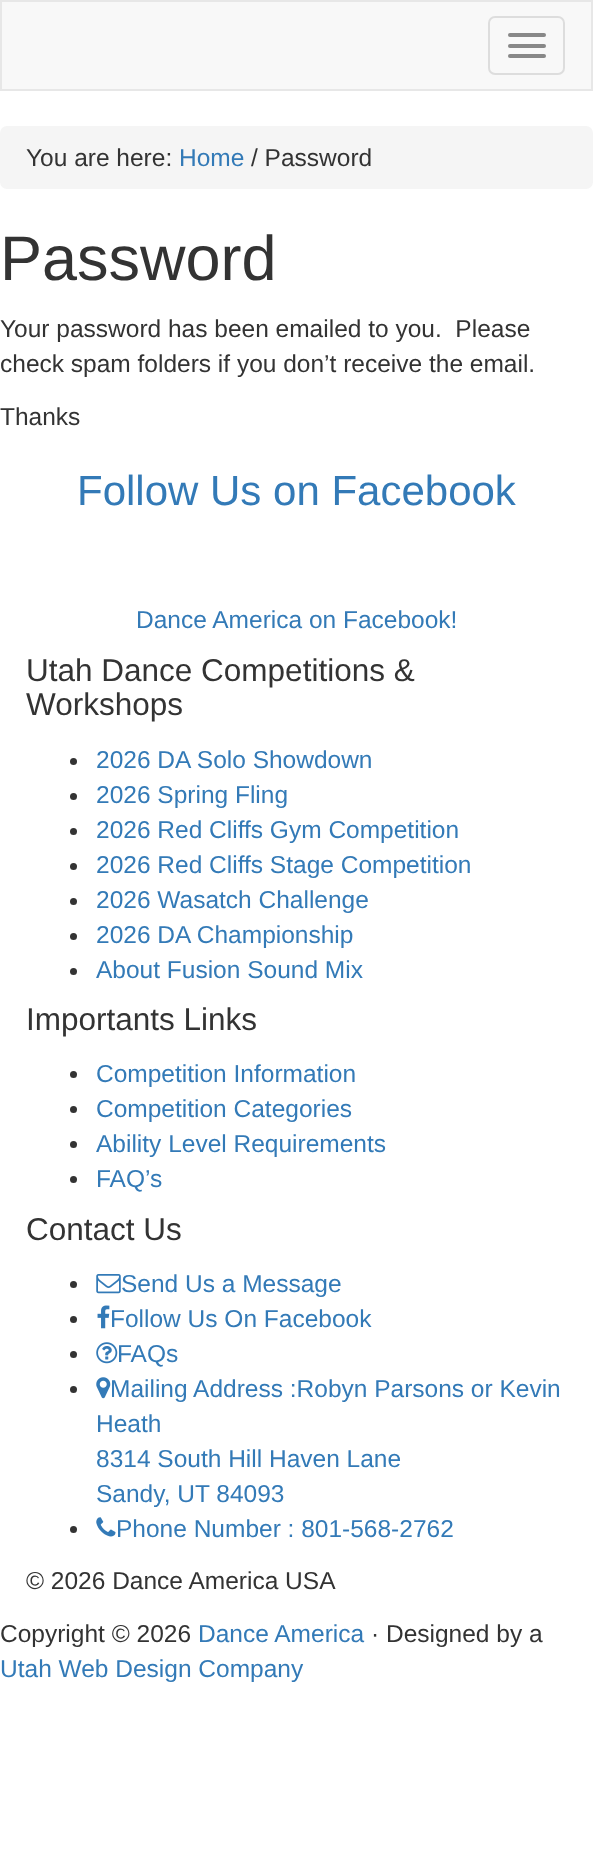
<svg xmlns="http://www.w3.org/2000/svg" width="593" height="1867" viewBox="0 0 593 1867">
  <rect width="100%" height="100%" fill="rgb(255,255,255)"/>
  <rect x="1" y="1" width="591" height="89" fill="rgb(248,248,248)" stroke="rgb(231,231,231)" stroke-width="2"/>
  <rect x="489" y="17" width="75" height="57" rx="6" fill="none" stroke="rgb(221,221,221)" stroke-width="2"/>
  <rect x="508" y="33" width="38" height="4" rx="2" fill="rgb(136,136,136)"/>
  <rect x="508" y="44" width="38" height="4" rx="2" fill="rgb(136,136,136)"/>
  <rect x="508" y="54" width="38" height="4" rx="2" fill="rgb(136,136,136)"/>
  <rect x="0" y="126" width="593" height="63" rx="7" fill="rgb(245,245,245)"/>
  <text x="26" y="166" font-family="Liberation Sans" font-size="24.5" fill="rgb(51,51,51)">You are here:</text>
  <text x="179" y="166" font-family="Liberation Sans" font-size="24.5" fill="rgb(51,122,183)">Home</text>
  <text x="251" y="166" font-family="Liberation Sans" font-size="24.5" fill="rgb(51,51,51)">/ Password</text>
  <text x="0" y="280" font-family="Liberation Sans" font-size="63" fill="rgb(51,51,51)">Password</text>
  <g font-family="Liberation Sans" font-size="24.5" fill="rgb(51,51,51)">
    <text xml:space="preserve"><tspan x="0" y="337">Your password has been emailed to you.  Please</tspan><tspan x="0" y="372">check spam folders if you don’t receive the email.</tspan></text>
    <text x="0" y="425">Thanks</text>
  </g>
  <text x="77" y="505" font-family="Liberation Sans" font-size="42" fill="rgb(51,122,183)">Follow Us on Facebook</text>
  <text x="136" y="628" font-family="Liberation Sans" font-size="24.5" fill="rgb(51,122,183)">Dance America on Facebook!</text>
  <g font-family="Liberation Sans" font-size="31.5" fill="rgb(51,51,51)">
    <text>
      <tspan x="26" y="681">Utah Dance Competitions &amp;</tspan>
      <tspan x="26" y="715">Workshops</tspan>
    </text>
  </g>
  <circle cx="73.5" cy="761.5" r="3.5" fill="rgb(51,51,51)"/>
  <text x="96" y="768" font-family="Liberation Sans" font-size="24.5" fill="rgb(51,122,183)">2026 DA Solo Showdown</text>
  <circle cx="73.5" cy="796.5" r="3.5" fill="rgb(51,51,51)"/>
  <text x="96" y="803" font-family="Liberation Sans" font-size="24.5" fill="rgb(51,122,183)">2026 Spring Fling</text>
  <circle cx="73.5" cy="831.5" r="3.5" fill="rgb(51,51,51)"/>
  <text x="96" y="838" font-family="Liberation Sans" font-size="24.5" fill="rgb(51,122,183)">2026 Red Cliffs Gym Competition</text>
  <circle cx="73.5" cy="866.5" r="3.5" fill="rgb(51,51,51)"/>
  <text x="96" y="873" font-family="Liberation Sans" font-size="24.5" fill="rgb(51,122,183)">2026 Red Cliffs Stage Competition</text>
  <circle cx="73.5" cy="901.5" r="3.5" fill="rgb(51,51,51)"/>
  <text x="96" y="908" font-family="Liberation Sans" font-size="24.5" fill="rgb(51,122,183)">2026 Wasatch Challenge</text>
  <circle cx="73.5" cy="936.5" r="3.5" fill="rgb(51,51,51)"/>
  <text x="96" y="943" font-family="Liberation Sans" font-size="24.5" fill="rgb(51,122,183)">2026 DA Championship</text>
  <circle cx="73.5" cy="971.5" r="3.5" fill="rgb(51,51,51)"/>
  <text x="96" y="978" font-family="Liberation Sans" font-size="24.5" fill="rgb(51,122,183)">About Fusion Sound Mix</text>
  <text x="26" y="1030" font-family="Liberation Sans" font-size="31.5" fill="rgb(51,51,51)">Importants Links</text>
  <circle cx="73.5" cy="1074.5" r="3.5" fill="rgb(51,51,51)"/>
  <text x="96" y="1082" font-family="Liberation Sans" font-size="24.5" fill="rgb(51,122,183)">Competition Information</text>
  <circle cx="73.5" cy="1109.5" r="3.5" fill="rgb(51,51,51)"/>
  <text x="96" y="1117" font-family="Liberation Sans" font-size="24.5" fill="rgb(51,122,183)">Competition Categories</text>
  <circle cx="73.5" cy="1144.5" r="3.5" fill="rgb(51,51,51)"/>
  <text x="96" y="1152" font-family="Liberation Sans" font-size="24.5" fill="rgb(51,122,183)">Ability Level Requirements</text>
  <circle cx="73.5" cy="1179.5" r="3.5" fill="rgb(51,51,51)"/>
  <text x="96" y="1187" font-family="Liberation Sans" font-size="24.5" fill="rgb(51,122,183)">FAQ’s</text>
  <text x="26" y="1240" font-family="Liberation Sans" font-size="31.5" fill="rgb(51,51,51)">Contact Us</text>
  <circle cx="73.5" cy="1284.5" r="3.5" fill="rgb(51,51,51)"/>
  <image x="96" y="1274" width="25" height="20" href="pic1.png"/>
  <text x="121" y="1292" font-family="Liberation Sans" font-size="24.5" fill="rgb(51,122,183)">Send Us a Message</text>
  <circle cx="73.5" cy="1319.5" r="3.5" fill="rgb(51,51,51)"/>
  <image x="97" y="1305" width="13" height="24" href="pic2.png"/>
  <text x="110" y="1327" font-family="Liberation Sans" font-size="24.5" fill="rgb(51,122,183)">Follow Us On Facebook</text>
  <circle cx="73.5" cy="1354.5" r="3.5" fill="rgb(51,51,51)"/>
  <image x="96" y="1342" width="22" height="22" href="pic3.png"/>
  <text x="117" y="1362" font-family="Liberation Sans" font-size="24.5" fill="rgb(51,122,183)">FAQs</text>
  <circle cx="73.5" cy="1389.5" r="3.5" fill="rgb(51,51,51)"/>
  <image x="96" y="1377" width="15" height="22" href="pic4.png"/>
  <g font-family="Liberation Sans" font-size="24.5" fill="rgb(51,122,183)">
    <text x="110" y="1397">Mailing Address :Robyn Parsons or Kevin</text>
    <text>
      <tspan x="96" y="1432">Heath</tspan>
      <tspan x="96" y="1467">8314 South Hill Haven Lane</tspan>
      <tspan x="96" y="1502">Sandy, UT 84093</tspan>
    </text>
  </g>
  <circle cx="73.5" cy="1529.5" r="3.5" fill="rgb(51,51,51)"/>
  <image x="96" y="1517" width="20" height="20" href="pic5.png"/>
  <text x="116" y="1537" font-family="Liberation Sans" font-size="24.5" fill="rgb(51,122,183)">Phone Number : 801-568-2762</text>
  <g font-family="Liberation Sans" font-size="24.5" fill="rgb(51,51,51)">
    <text x="26" y="1589">© 2026 Dance America USA</text>
    <text x="0" y="1642">Copyright © 2026</text>
  </g>
  <text x="198" y="1642" font-family="Liberation Sans" font-size="24.5" fill="rgb(51,122,183)">Dance America</text>
  <text x="371" y="1642" font-family="Liberation Sans" font-size="24.5" fill="rgb(51,51,51)">· Designed by a</text>
  <text x="0" y="1677" font-family="Liberation Sans" font-size="24.5" fill="rgb(51,122,183)">Utah Web Design Company</text>
</svg>
